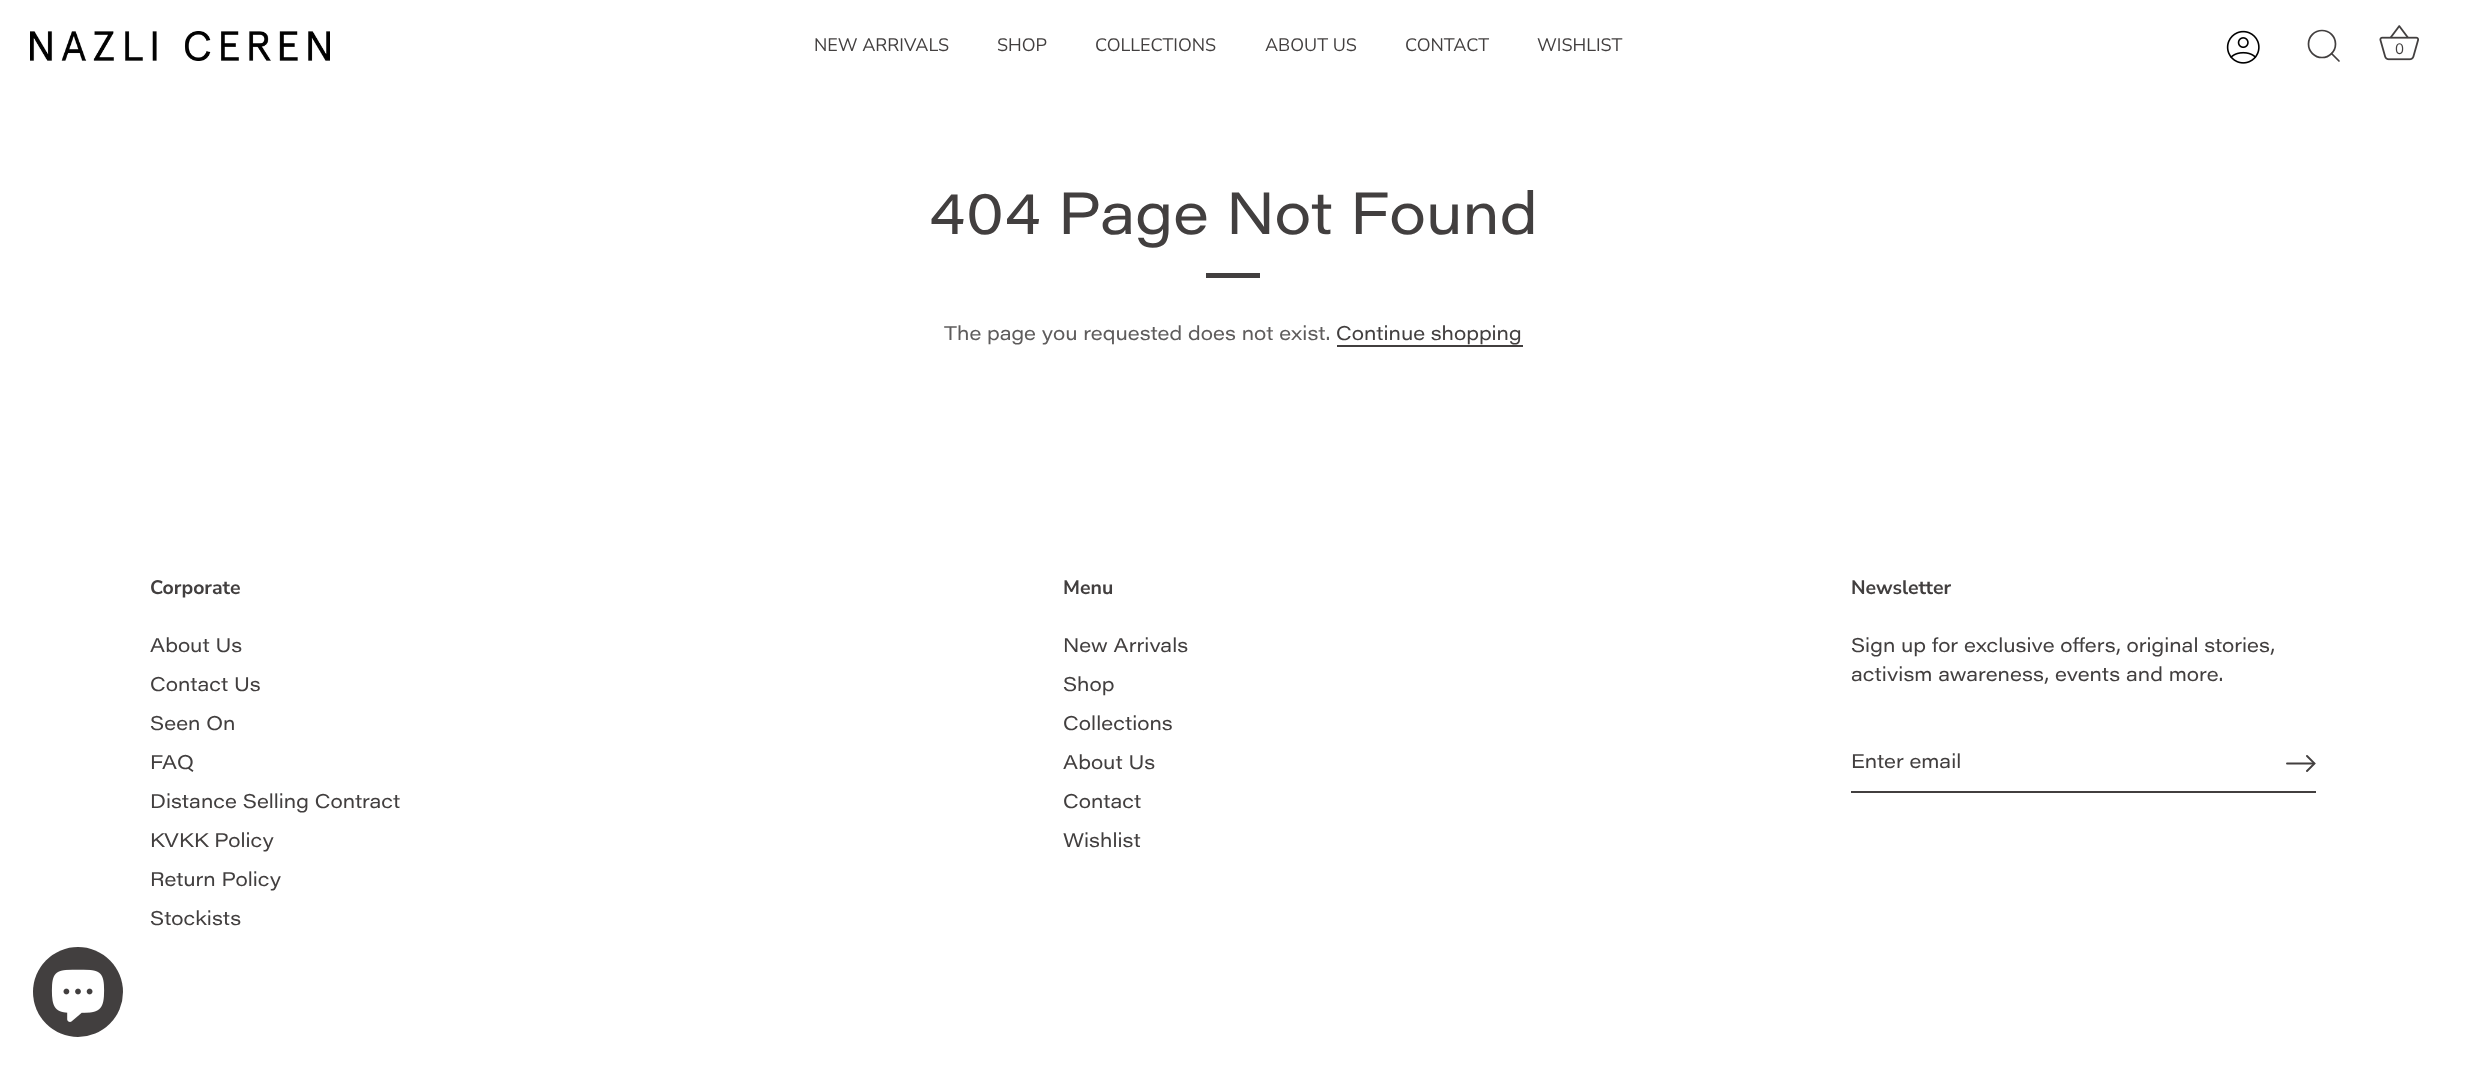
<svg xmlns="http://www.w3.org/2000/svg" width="2466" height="1067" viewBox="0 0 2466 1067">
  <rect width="100%" height="100%" fill="rgb(255,255,255)"/>
  <image x="30" y="31" width="300" height="30" href="pic1.png"/>
  <g font-family="Nunito Sans" font-size="18" fill="rgb(66,63,63)">
    <text x="814" y="51">NEW ARRIVALS</text>
    <text x="997" y="51">SHOP</text>
    <text x="1095" y="51">COLLECTIONS</text>
    <text x="1265" y="51">ABOUT US</text>
    <text x="1405" y="51">CONTACT</text>
    <text x="1537" y="51">WISHLIST</text>
  </g>
  <image x="2226" y="30" width="34" height="34" href="pic2.png"/>
  <circle cx="2322" cy="44" r="13.5" fill="none" stroke="rgb(66,63,63)" stroke-width="1.7"/>
  <path d="M2339 61L2331.5 53.5" fill="none" stroke="rgb(66,63,63)" stroke-width="1.7" stroke-linecap="round" stroke-linejoin="round"/>
  <image x="2379" y="25" width="40" height="36" href="pic3.png"/>
  <text x="2395" y="54" font-family="Nunito Sans" font-size="15" fill="rgb(66,63,63)">0</text>
  <text x="929" y="234" font-family="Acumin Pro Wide" font-size="58.5" fill="rgb(66,63,63)">404 Page Not Found</text>
  <rect x="1206" y="273" width="54" height="5" fill="rgb(66,63,63)"/>
  <text x="944" y="340" font-family="Acumin Pro Wide" font-size="19.5" fill="rgb(94,92,92)">The page you requested does not exist.</text>
  <text x="1336" y="340" font-family="Acumin Pro Wide" font-size="19.5" fill="rgb(66,63,63)">Continue shopping</text>
  <rect x="1337" y="345" width="186" height="2" fill="rgb(66,63,63)"/>
  <text x="150" y="594" font-family="Nunito Sans" font-size="19.5" font-weight="bold" fill="rgb(66,63,63)">Corporate</text>
  <g font-family="Acumin Pro Wide" font-size="19.5" fill="rgb(66,63,63)">
    <text x="150" y="652">About Us</text>
    <text x="150" y="691">Contact Us</text>
    <text x="150" y="730">Seen On</text>
    <text x="150" y="769">FAQ</text>
    <text x="150" y="808">Distance Selling Contract</text>
    <text x="150" y="847">KVKK Policy</text>
    <text x="150" y="886">Return Policy</text>
    <text x="150" y="925">Stockists</text>
  </g>
  <text x="1063" y="594" font-family="Nunito Sans" font-size="19.5" font-weight="bold" fill="rgb(66,63,63)">Menu</text>
  <g font-family="Acumin Pro Wide" font-size="19.5" fill="rgb(66,63,63)">
    <text x="1063" y="652">New Arrivals</text>
    <text x="1063" y="691">Shop</text>
    <text x="1063" y="730">Collections</text>
    <text x="1063" y="769">About Us</text>
    <text x="1063" y="808">Contact</text>
    <text x="1063" y="847">Wishlist</text>
  </g>
  <text x="1851" y="594" font-family="Nunito Sans" font-size="19.5" font-weight="bold" fill="rgb(66,63,63)">Newsletter</text>
  <g font-family="Acumin Pro Wide" font-size="19.5" fill="rgb(66,63,63)">
    <text>
      <tspan x="1851" y="652">Sign up for exclusive offers, original stories,</tspan>
      <tspan x="1851" y="681">activism awareness, events and more.</tspan>
    </text>
  </g>
  <rect x="1851" y="791" width="465" height="2" fill="rgb(66,63,63)"/>
  <text x="1851" y="768" font-family="Acumin Pro Wide" font-size="19.5" fill="rgb(66,63,63)">Enter email</text>
  <path d="M2307 771L2314.5 763.5L2307 756" fill="none" stroke="rgb(66,63,63)" stroke-width="1.9" stroke-linecap="round"/>
  <path d="M2313.5 763.5H2287" fill="none" stroke="rgb(66,63,63)" stroke-width="1.9" stroke-linecap="round" stroke-linejoin="round"/>
  <circle cx="78" cy="992" r="45" fill="rgb(66,63,63)"/>
  <image x="51" y="969" width="54" height="53" href="pic4.png"/>
</svg>
